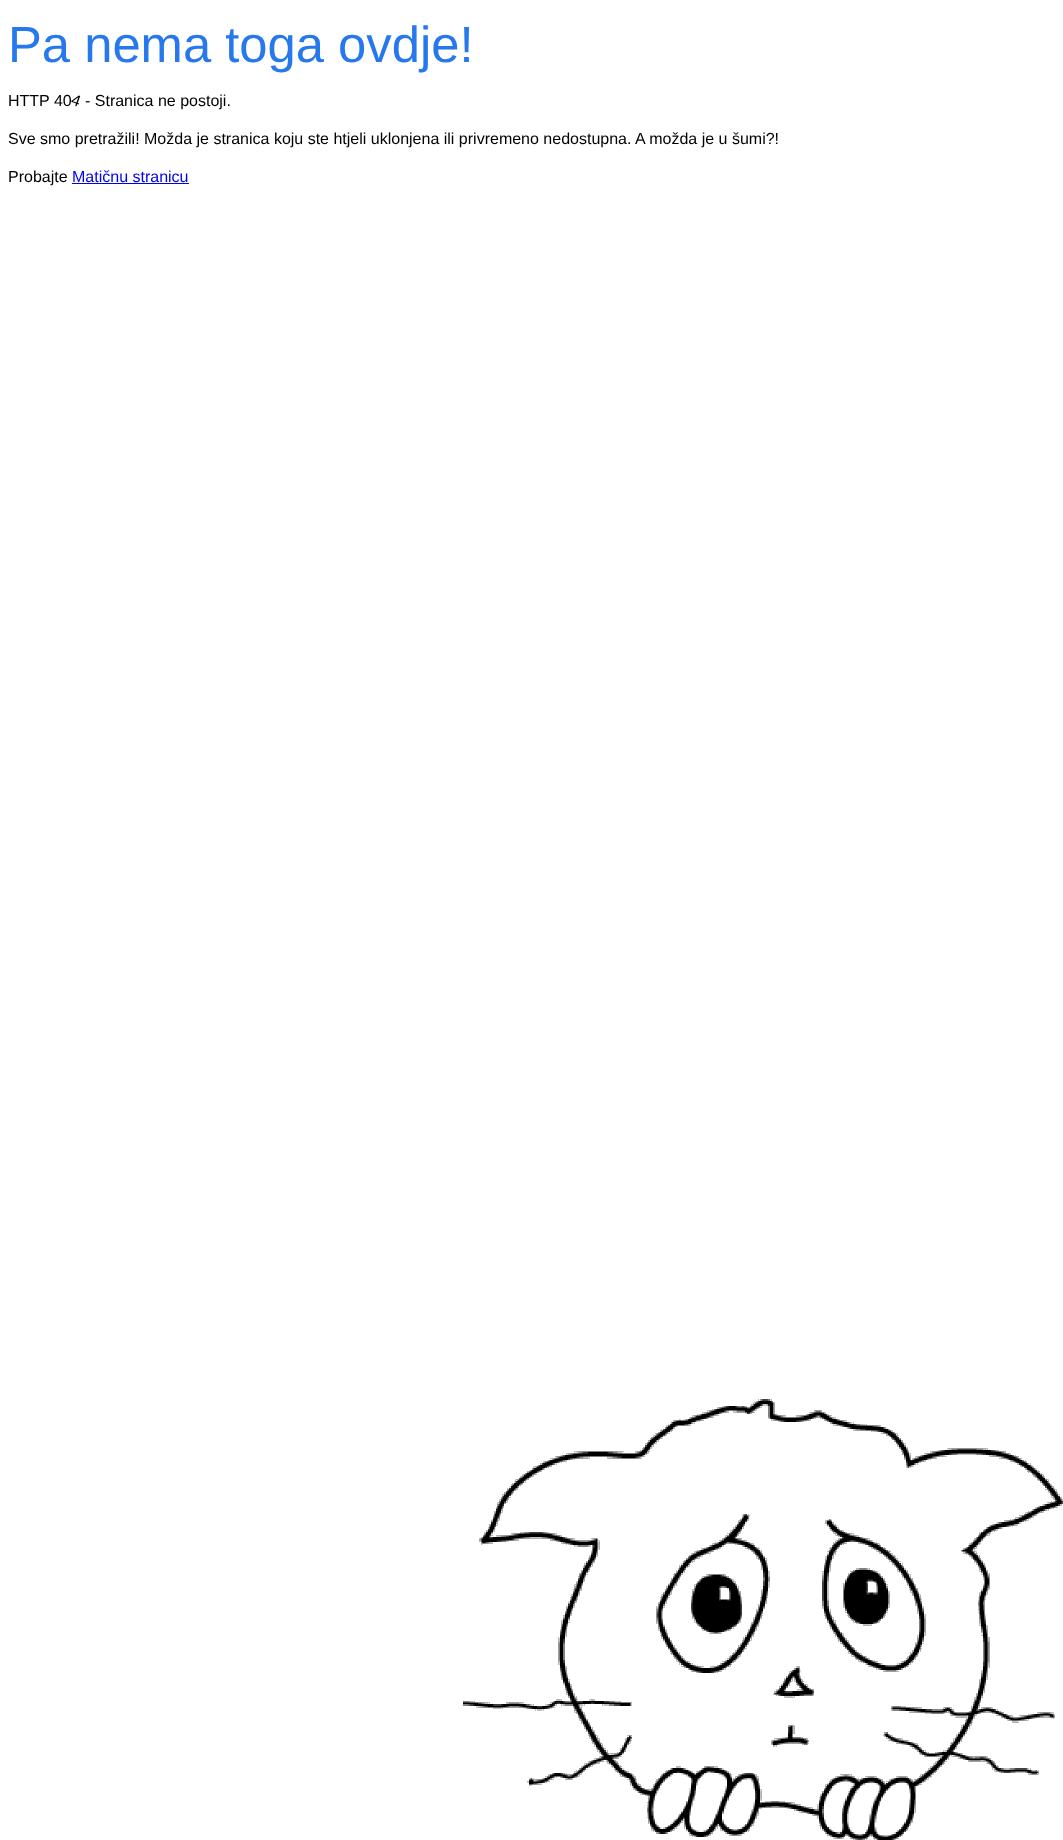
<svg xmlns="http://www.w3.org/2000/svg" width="1063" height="1840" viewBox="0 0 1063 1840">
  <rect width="100%" height="100%" fill="rgb(255,255,255)"/>
  <image x="463" y="1399" width="600" height="441" href="pic1.png"/>
  <text x="8" y="62" font-family="Liberation Sans" font-size="50.75" fill="rgb(39,120,236)">Pa nema toga ovdje!</text>
  <g font-family="Liberation Sans" font-size="16" fill="rgb(0,0,0)">
    <text x="8" y="106">HTTP 40</text>
    <text x="70" y="104" transform="rotate(20 70 104)">4</text>
    <text x="85" y="106">- Stranica ne postoji.</text>
    <text x="8" y="144">Sve smo pretražili! Možda je stranica koju ste htjeli uklonjena ili privremeno nedostupna. A možda je u šumi?!</text>
    <text x="8" y="182">Probajte</text>
  </g>
  <text x="72" y="182" font-family="Liberation Sans" font-size="16" fill="rgb(0,0,238)">Matičnu stranicu</text>
  <rect x="72" y="183" width="117" height="1" fill="rgb(0,0,238)"/>
</svg>
